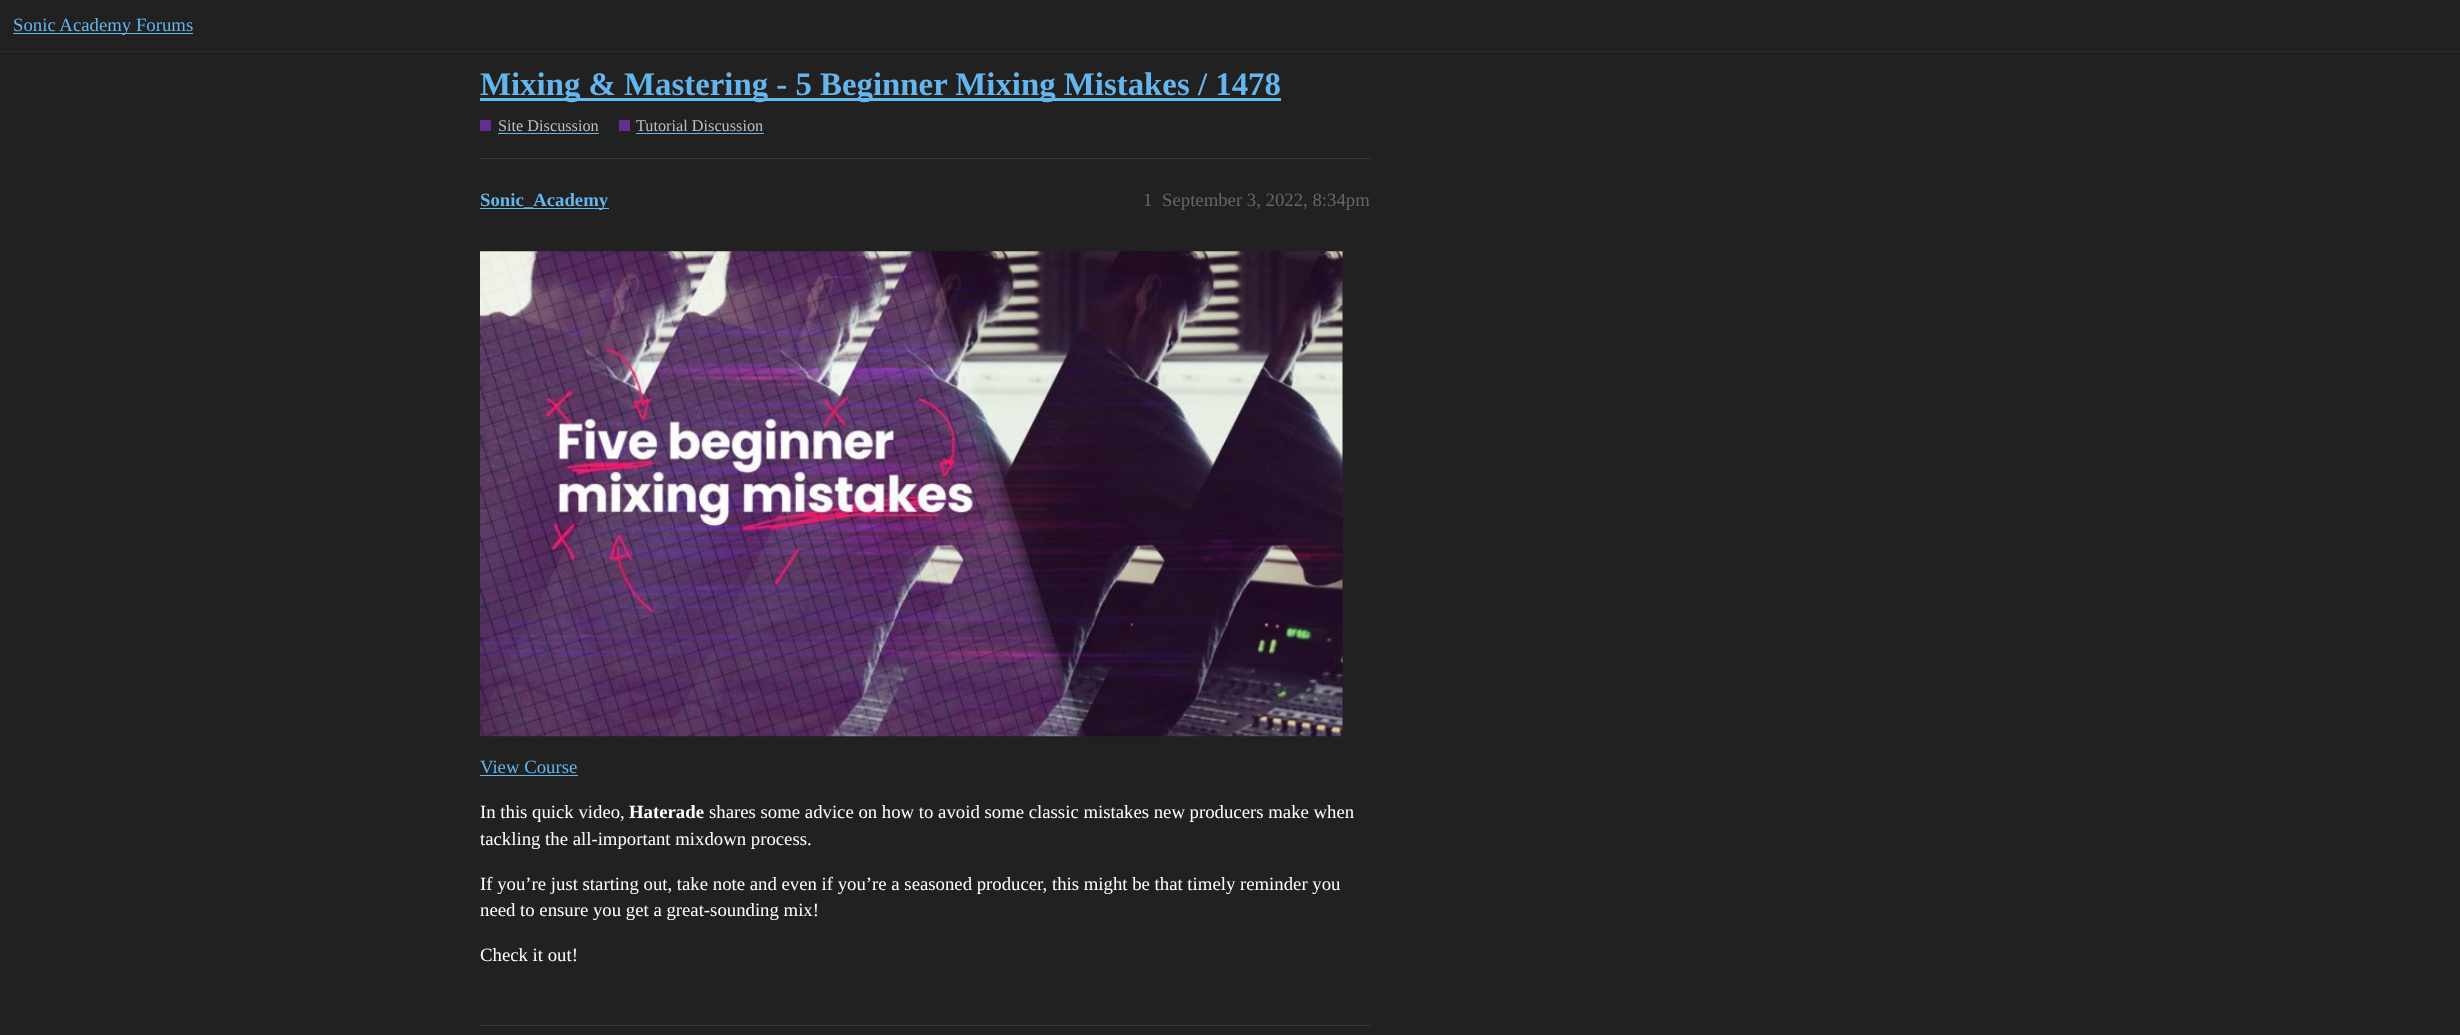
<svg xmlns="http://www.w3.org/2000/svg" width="2460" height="1035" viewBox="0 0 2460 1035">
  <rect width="100%" height="100%" fill="rgb(33,33,33)"/>
  <rect x="0" y="51" width="2460" height="1" fill="rgb(44,44,44)"/>
  <rect x="13" y="33" width="180" height="1" fill="rgb(101,182,238)"/>
  <text x="13" y="31" font-family="Liberation Serif" font-size="18.75" fill="rgb(101,182,238)">Sonic Academy Forums</text>
  <rect x="480" y="98" width="801" height="3" fill="rgb(101,182,238)"/>
  <text x="480" y="95" font-family="Liberation Serif" font-size="32.85" font-weight="bold" fill="rgb(101,182,238)">Mixing &amp; Mastering - 5 Beginner Mixing Mistakes / 1478</text>
  <rect x="480" y="120" width="11" height="11" fill="rgb(101,45,144)"/>
  <text x="498" y="131" font-family="Liberation Serif" font-size="16.25" fill="rgb(191,191,191)">Site Discussion</text>
  <rect x="498" y="133" width="101" height="1" fill="rgb(101,182,238)"/>
  <rect x="619" y="120" width="11" height="11" fill="rgb(101,45,144)"/>
  <text x="636" y="131" font-family="Liberation Serif" font-size="16.25" fill="rgb(191,191,191)">Tutorial Discussion</text>
  <rect x="636" y="133" width="128" height="1" fill="rgb(101,182,238)"/>
  <rect x="480" y="158" width="890" height="1" fill="rgb(56,56,56)"/>
  <rect x="480" y="208" width="129" height="1" fill="rgb(101,182,238)"/>
  <text x="480" y="206" font-family="Liberation Serif" font-size="18.75" font-weight="bold" fill="rgb(101,182,238)">Sonic_Academy</text>
  <g font-family="Liberation Serif" font-size="18.75" fill="rgb(102,102,102)">
    <text x="1143" y="206">1</text>
    <text x="1162" y="206">September 3, 2022, 8:34pm</text>
  </g>
  <image x="480" y="251" width="863" height="486" href="pic1.png"/>
  <text x="480" y="773" font-family="Liberation Serif" font-size="18.75" fill="rgb(101,182,238)">View Course</text>
  <rect x="480" y="775" width="98" height="1" fill="rgb(101,182,238)"/>
  <text x="480" y="818" font-family="Liberation Serif" font-size="18.75" fill="rgb(255,255,255)">In this quick video,</text>
  <text x="629" y="818" font-family="Liberation Serif" font-size="18.75" font-weight="bold" fill="rgb(255,255,255)">Haterade</text>
  <g font-family="Liberation Serif" font-size="18.75" fill="rgb(255,255,255)">
    <text x="709" y="818">shares some advice on how to avoid some classic mistakes new producers make when</text>
    <text x="480" y="845">tackling the all-important mixdown process.</text>
    <text>
      <tspan x="480" y="890">If you’re just starting out, take note and even if you’re a seasoned producer, this might be that timely reminder you</tspan>
      <tspan x="480" y="916">need to ensure you get a great-sounding mix!</tspan>
    </text>
    <text x="480" y="961">Check it out!</text>
  </g>
  <rect x="480" y="1025" width="890" height="1" fill="rgb(56,56,56)"/>
</svg>
